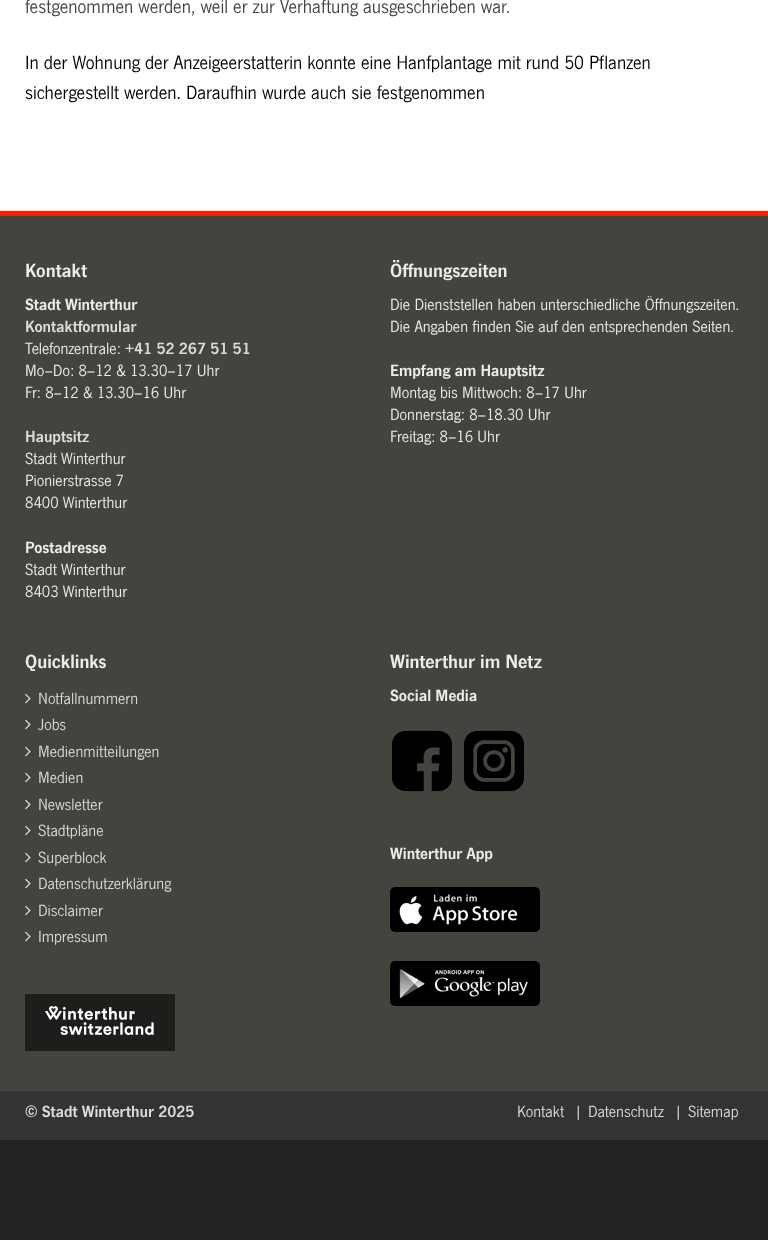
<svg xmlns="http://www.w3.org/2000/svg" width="768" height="1240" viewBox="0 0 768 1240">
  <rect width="100%" height="100%" fill="rgb(34,34,34)"/>
  <rect x="0" y="0" width="768" height="211" fill="rgb(255,255,255)"/>
  <text x="25" y="13" font-family="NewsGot" font-size="20" fill="rgb(68,68,63)">festgenommen werden, weil er zur Verhaftung ausgeschrieben war.</text>
  <g font-family="NewsGot" font-size="20" fill="rgb(0,0,0)">
    <text>
      <tspan x="25" y="69">In der Wohnung der Anzeigeerstatterin konnte eine Hanfplantage mit rund 50 Pflanzen</tspan>
      <tspan x="25" y="99">sichergestellt werden. Daraufhin wurde auch sie festgenommen</tspan>
    </text>
  </g>
  <rect x="0" y="216" width="768" height="875" fill="rgb(68,68,63)"/>
  <rect x="0" y="211" width="768" height="5" fill="rgb(255,25,0)"/>
  <text x="25" y="277" font-family="'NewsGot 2'" font-size="20" fill="rgb(236,236,234)">Kontakt</text>
  <text x="25" y="310" font-family="'NewsGot 2'" font-size="17" fill="rgb(236,236,234)">Stadt Winterthur</text>
  <text x="25" y="332" font-family="'NewsGot 2'" font-size="17" fill="rgb(218,218,214)">Kontaktformular</text>
  <text x="25" y="354" font-family="NewsGot" font-size="17" fill="rgb(236,236,234)">Telefonzentrale:</text>
  <text x="125" y="354" font-family="'NewsGot 2'" font-size="17" fill="rgb(218,218,214)">+41 52 267 51 51</text>
  <g font-family="NewsGot" font-size="17" fill="rgb(236,236,234)">
    <text>
      <tspan x="25" y="376">Mo–Do: 8–12 &amp; 13.30–17 Uhr</tspan>
      <tspan x="25" y="398">Fr: 8–12 &amp; 13.30–16 Uhr</tspan>
    </text>
  </g>
  <text x="25" y="442" font-family="'NewsGot 2'" font-size="17" fill="rgb(218,218,214)">Hauptsitz</text>
  <g font-family="NewsGot" font-size="17" fill="rgb(236,236,234)">
    <text>
      <tspan x="25" y="464">Stadt Winterthur</tspan>
      <tspan x="25" y="486">Pionierstrasse 7</tspan>
      <tspan x="25" y="508">8400 Winterthur</tspan>
    </text>
  </g>
  <text x="25" y="553" font-family="'NewsGot 2'" font-size="17" fill="rgb(236,236,234)">Postadresse</text>
  <g font-family="NewsGot" font-size="17" fill="rgb(236,236,234)">
    <text>
      <tspan x="25" y="575">Stadt Winterthur</tspan>
      <tspan x="25" y="597">8403 Winterthur</tspan>
    </text>
  </g>
  <text x="390" y="277" font-family="'NewsGot 2'" font-size="20" fill="rgb(236,236,234)">Öffnungszeiten</text>
  <g font-family="NewsGot" font-size="17" fill="rgb(236,236,234)">
    <text>
      <tspan x="390" y="310">Die Dienststellen haben unterschiedliche Öffnungszeiten.</tspan>
      <tspan x="390" y="332">Die Angaben finden Sie auf den entsprechenden Seiten.</tspan>
    </text>
  </g>
  <text x="390" y="376" font-family="'NewsGot 2'" font-size="17" fill="rgb(236,236,234)">Empfang am Hauptsitz</text>
  <g font-family="NewsGot" font-size="17" fill="rgb(236,236,234)">
    <text>
      <tspan x="390" y="398">Montag bis Mittwoch: 8–17 Uhr</tspan>
      <tspan x="390" y="420">Donnerstag: 8–18.30 Uhr</tspan>
      <tspan x="390" y="442">Freitag: 8–16 Uhr</tspan>
    </text>
  </g>
  <text x="25" y="668" font-family="'NewsGot 2'" font-size="20" fill="rgb(236,236,234)">Quicklinks</text>
  <image x="25" y="693" width="6" height="11" href="pic1.png"/>
  <text x="38" y="704" font-family="NewsGot" font-size="17" fill="rgb(218,218,214)">Notfallnummern</text>
  <image x="25" y="719" width="6" height="11" href="pic1.png"/>
  <text x="38" y="730" font-family="NewsGot" font-size="17" fill="rgb(218,218,214)">Jobs</text>
  <image x="25" y="746" width="6" height="11" href="pic1.png"/>
  <text x="38" y="757" font-family="NewsGot" font-size="17" fill="rgb(218,218,214)">Medienmitteilungen</text>
  <image x="25" y="772" width="6" height="11" href="pic1.png"/>
  <text x="38" y="783" font-family="NewsGot" font-size="17" fill="rgb(218,218,214)">Medien</text>
  <image x="25" y="799" width="6" height="11" href="pic1.png"/>
  <text x="38" y="810" font-family="NewsGot" font-size="17" fill="rgb(218,218,214)">Newsletter</text>
  <image x="25" y="825" width="6" height="11" href="pic1.png"/>
  <text x="38" y="836" font-family="NewsGot" font-size="17" fill="rgb(218,218,214)">Stadtpläne</text>
  <image x="25" y="852" width="6" height="11" href="pic1.png"/>
  <text x="38" y="863" font-family="NewsGot" font-size="17" fill="rgb(218,218,214)">Superblock</text>
  <image x="25" y="878" width="6" height="11" href="pic1.png"/>
  <text x="38" y="889" font-family="NewsGot" font-size="17" fill="rgb(218,218,214)">Datenschutzerklärung</text>
  <image x="25" y="905" width="6" height="11" href="pic1.png"/>
  <text x="38" y="916" font-family="NewsGot" font-size="17" fill="rgb(218,218,214)">Disclaimer</text>
  <image x="25" y="931" width="6" height="11" href="pic1.png"/>
  <text x="38" y="942" font-family="NewsGot" font-size="17" fill="rgb(218,218,214)">Impressum</text>
  <image x="25" y="994" width="150" height="57" href="pic2.png"/>
  <text x="390" y="668" font-family="'NewsGot 2'" font-size="20" fill="rgb(236,236,234)">Winterthur im Netz</text>
  <text x="390" y="701" font-family="'NewsGot 2'" font-size="17" fill="rgb(236,236,234)">Social Media</text>
  <image x="391" y="730" width="62" height="62" href="pic3.png"/>
  <image x="463" y="730" width="62" height="62" href="pic4.png"/>
  <text x="390" y="859" font-family="'NewsGot 2'" font-size="17" fill="rgb(236,236,234)">Winterthur App</text>
  <image x="390" y="887" width="150" height="45" href="pic5.png"/>
  <image x="390" y="961" width="150" height="45" href="pic6.png"/>
  <rect x="0" y="1091" width="768" height="49" fill="rgb(51,51,51)"/>
  <text x="25" y="1117" font-family="'NewsGot 2'" font-size="17" fill="rgb(218,218,214)">© Stadt Winterthur 2025</text>
  <g font-family="NewsGot" font-size="17" fill="rgb(218,218,214)">
    <text x="517" y="1117">Kontakt</text>
    <text x="574" y="1117">|</text>
    <text x="588" y="1117">Datenschutz</text>
    <text x="674" y="1117">|</text>
    <text x="688" y="1117">Sitemap</text>
  </g>
</svg>
